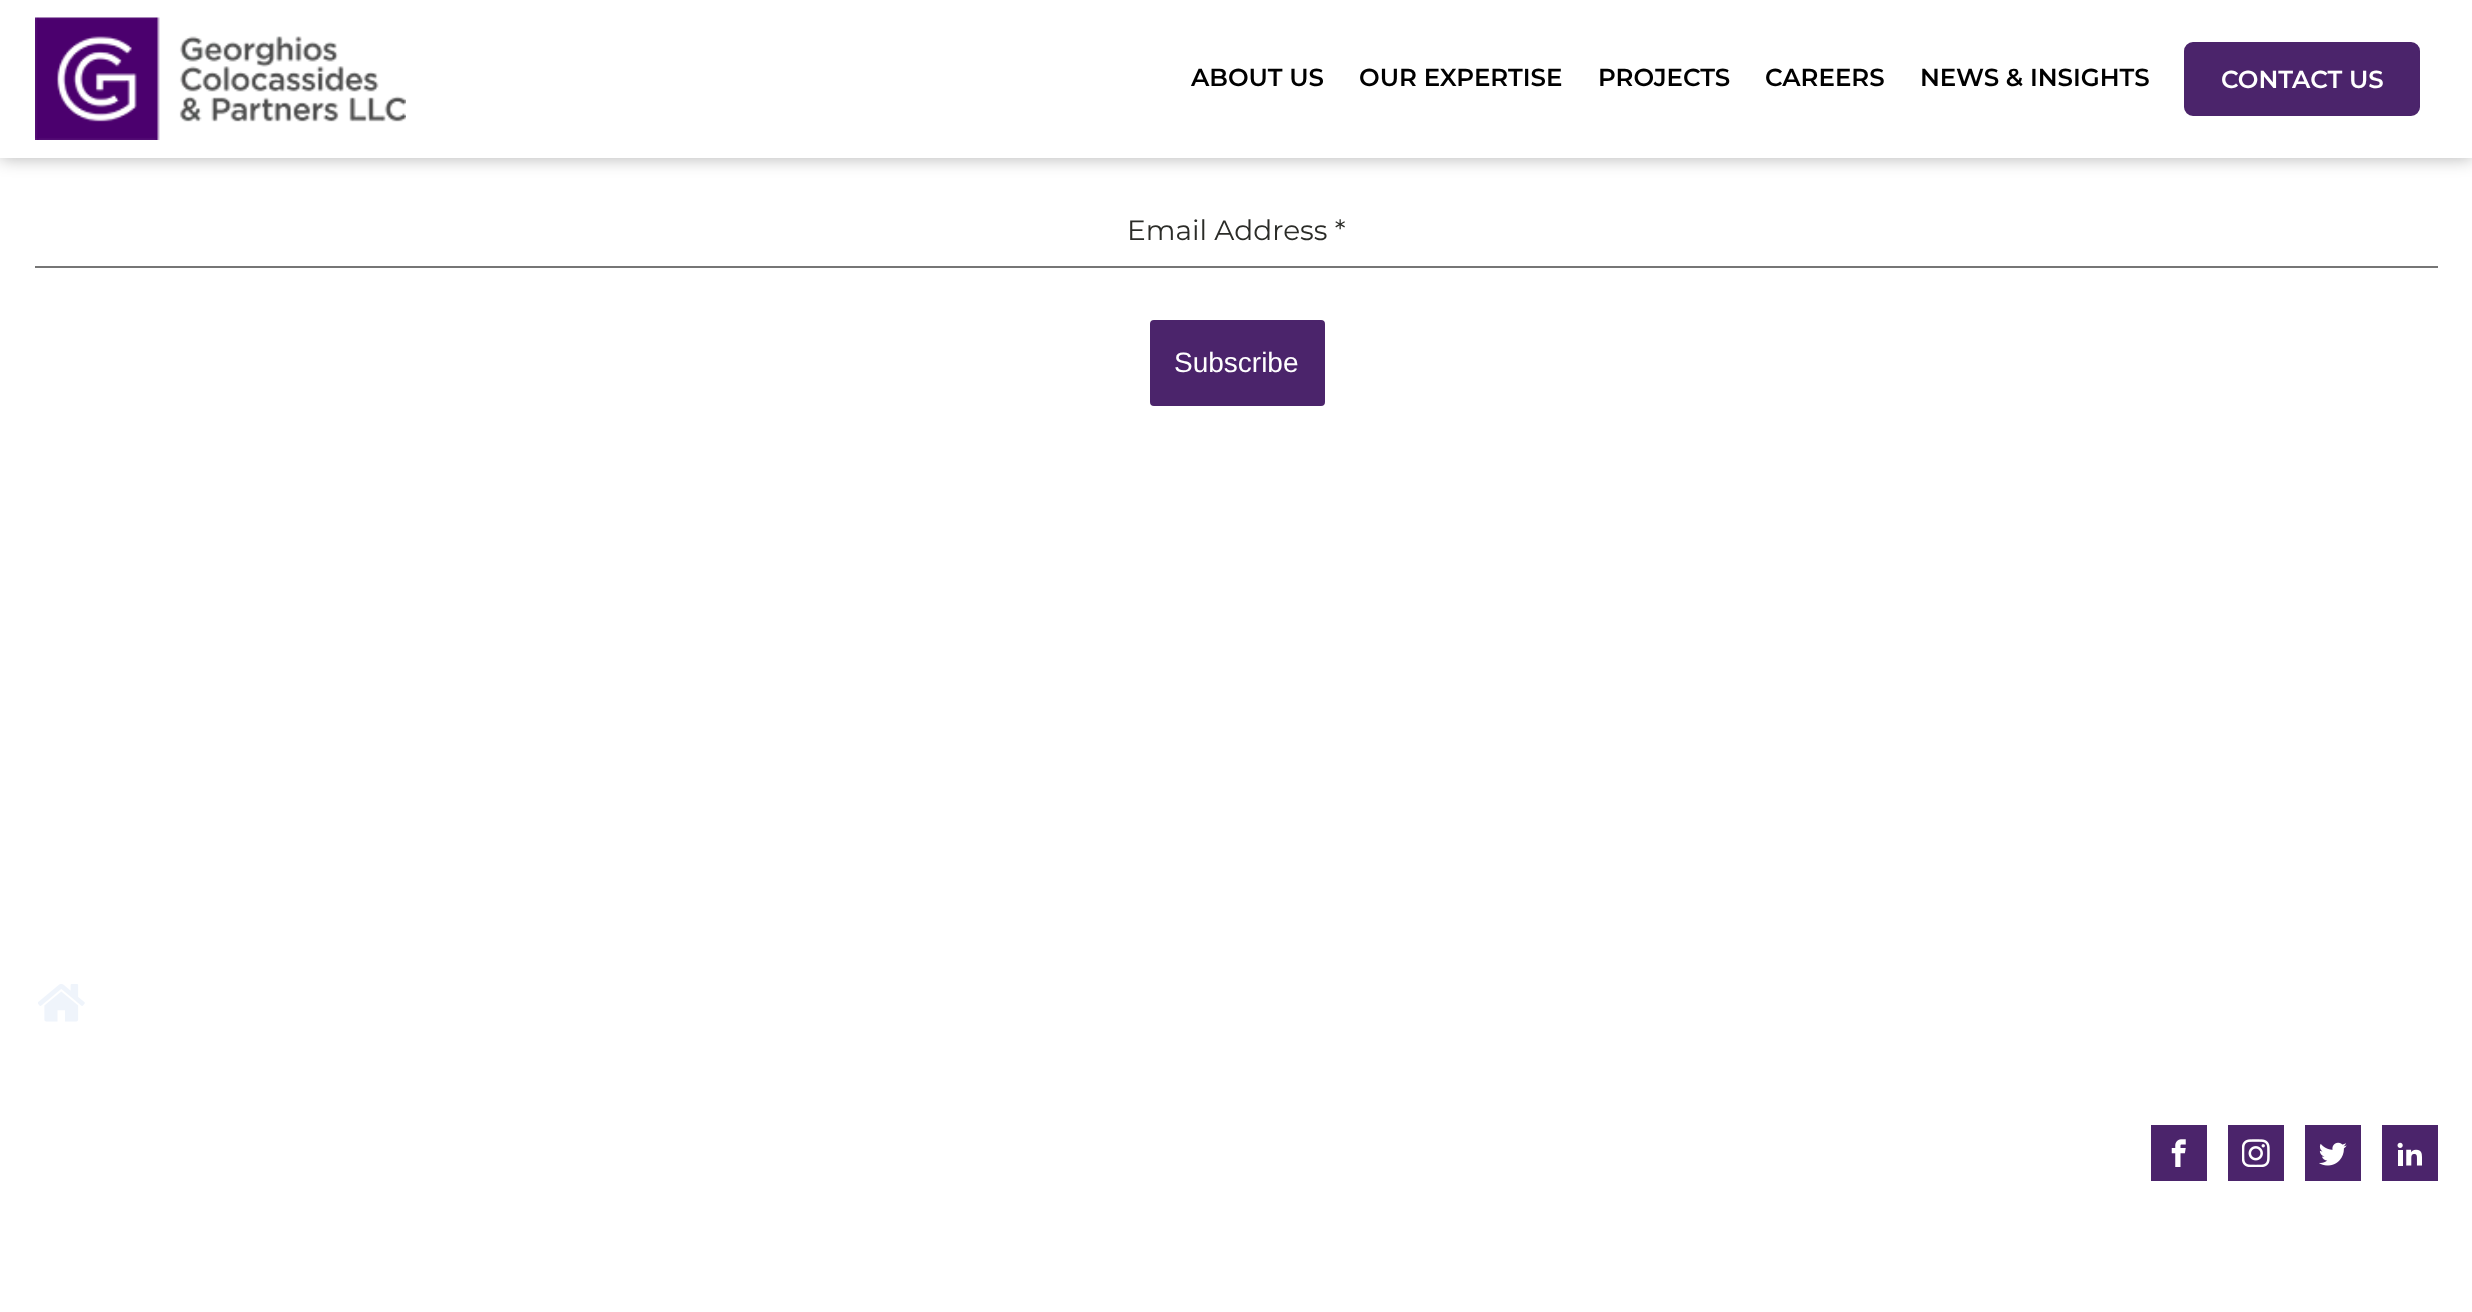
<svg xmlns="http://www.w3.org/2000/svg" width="2472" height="1312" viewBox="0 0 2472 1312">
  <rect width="100%" height="100%" fill="rgb(255,255,255)"/>
  <rect x="0" y="0" width="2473" height="158" fill="rgba(0,0,0,0.3)" filter="blur(9px)"/>
  <rect x="0" y="0" width="2472" height="158" fill="rgb(255,255,255)"/>
  <image x="35" y="17" width="371" height="123" href="pic1.png"/>
  <g font-family="Montserrat" font-size="24.5" font-weight="600" fill="rgb(0,0,0)">
    <text x="1191" y="86">ABOUT US</text>
    <text x="1359" y="86">OUR EXPERTISE</text>
    <text x="1598" y="86">PROJECTS</text>
    <text x="1765" y="86">CAREERS</text>
    <text x="1920" y="86">NEWS &amp; INSIGHTS</text>
  </g>
  <rect x="2185" y="43" width="234" height="72" rx="8" fill="rgb(75,36,107)" stroke="rgb(75,36,107)" stroke-width="2"/>
  <text x="2221" y="88" font-family="Montserrat" font-size="24.5" font-weight="600" fill="rgb(255,255,255)">CONTACT US</text>
  <text x="1127" y="240" font-family="Montserrat" font-size="28" fill="rgb(43,44,40)">Email Address *</text>
  <rect x="35" y="266" width="2403" height="2" fill="rgb(118,118,118)"/>
  <rect x="1152.5" y="322.5" width="170" height="81" rx="1.5" fill="rgb(75,36,107)" stroke="rgb(75,36,107)" stroke-width="5"/>
  <text x="1174" y="372" font-family="Liberation Sans" font-size="28" fill="rgb(255,255,255)">Subscribe</text>
  <image x="38" y="984" width="47" height="38" href="pic2.png"/>
  <rect x="2151" y="1125" width="56" height="56" fill="rgb(75,36,107)"/>
  <image x="2171" y="1139" width="15" height="28" href="pic3.png"/>
  <rect x="2228" y="1125" width="56" height="56" fill="rgb(75,36,107)"/>
  <image x="2242" y="1139" width="28" height="28" href="pic4.png"/>
  <rect x="2305" y="1125" width="56" height="56" fill="rgb(75,36,107)"/>
  <image x="2319" y="1142" width="28" height="24" href="pic5.png"/>
  <rect x="2382" y="1125" width="56" height="56" fill="rgb(75,36,107)"/>
  <image x="2397" y="1142" width="25" height="24" href="pic6.png"/>
</svg>
